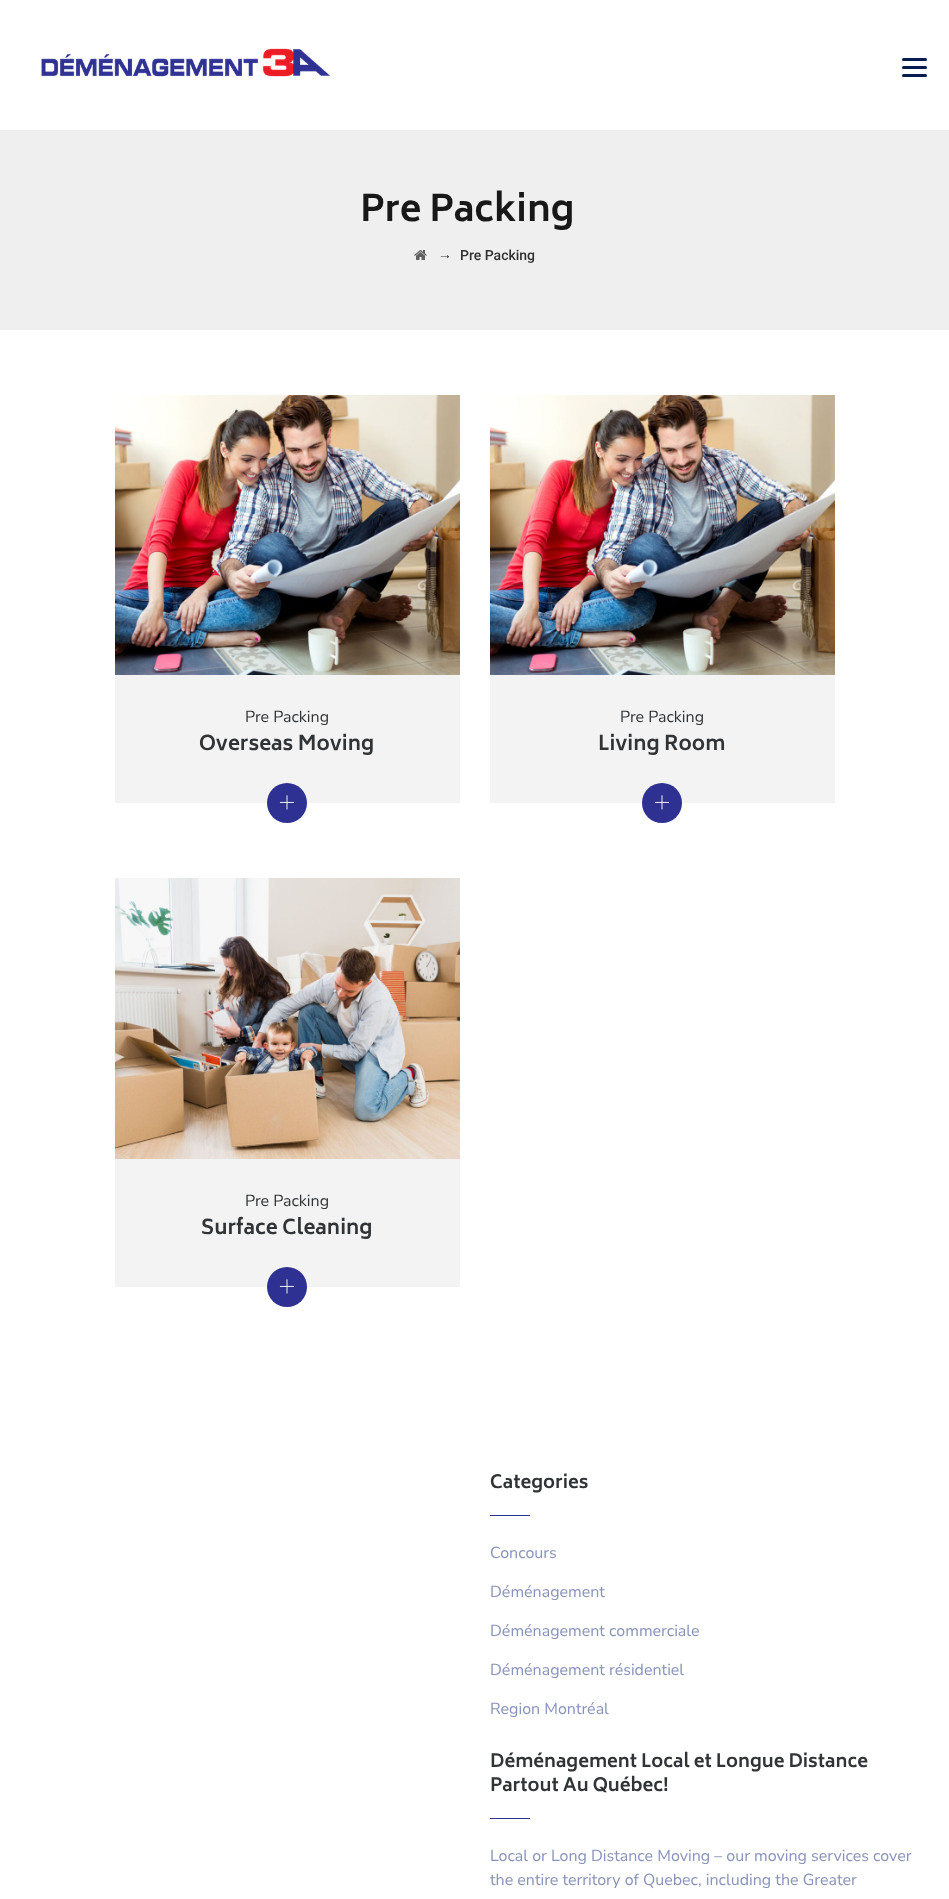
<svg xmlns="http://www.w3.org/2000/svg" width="949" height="1899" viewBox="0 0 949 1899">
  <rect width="100%" height="100%" fill="rgb(255,255,255)"/>
  <image x="41" y="48" width="289" height="29" href="pic1.png"/>
  <rect x="902" y="66" width="25" height="3" rx="1.5" fill="rgb(3,27,78)"/>
  <rect x="902" y="58" width="25" height="3" rx="1.5" fill="rgb(3,27,78)"/>
  <rect x="902" y="74" width="25" height="3" rx="1.5" fill="rgb(3,27,78)"/>
  <rect x="0" y="130" width="949" height="200" fill="rgb(239,239,239)"/>
  <text x="360" y="221" font-family="Biryani" font-size="36" font-weight="bold" fill="rgb(24,24,24)">Pre Packing</text>
  <image x="414" y="250" width="13" height="10" href="pic2.png"/>
  <text x="438" y="259" font-family="Liberation Sans" font-size="14" fill="rgb(48,48,48)">→</text>
  <text x="460" y="260" font-family="Roboto" font-size="14" font-weight="500" fill="rgb(48,48,48)">Pre Packing</text>
  <image x="115" y="395" width="345" height="280" href="pic3.png"/>
  <rect x="115" y="675" width="345" height="128" fill="rgb(243,243,243)"/>
  <text x="245" y="722" font-family="Nunito Sans" font-size="16" fill="rgb(49,52,55)">Pre Packing</text>
  <text x="199" y="750" font-family="Biryani" font-size="20" font-weight="bold" fill="rgb(49,52,55)">Overseas Moving</text>
  <circle cx="287" cy="803" r="20" fill="rgb(46,49,145)"/>
  <image x="279" y="795" width="16" height="15" href="pic4.png"/>
  <image x="490" y="395" width="345" height="280" href="pic5.png"/>
  <rect x="490" y="675" width="345" height="128" fill="rgb(243,243,243)"/>
  <text x="620" y="722" font-family="Nunito Sans" font-size="16" fill="rgb(49,52,55)">Pre Packing</text>
  <text x="598" y="750" font-family="Biryani" font-size="20" font-weight="bold" fill="rgb(49,52,55)">Living Room</text>
  <circle cx="662" cy="803" r="20" fill="rgb(46,49,145)"/>
  <image x="654" y="795" width="16" height="15" href="pic4.png"/>
  <image x="115" y="878" width="345" height="281" href="pic6.png"/>
  <rect x="115" y="1159" width="345" height="128" fill="rgb(243,243,243)"/>
  <text x="245" y="1206" font-family="Nunito Sans" font-size="16" fill="rgb(49,52,55)">Pre Packing</text>
  <text x="201" y="1234" font-family="Biryani" font-size="20" font-weight="bold" fill="rgb(49,52,55)">Surface Cleaning</text>
  <circle cx="287" cy="1287" r="20" fill="rgb(46,49,145)"/>
  <image x="279" y="1279" width="16" height="15" href="pic4.png"/>
  <text x="490" y="1488" font-family="Biryani" font-size="18" font-weight="bold" fill="rgb(49,52,55)">Categories</text>
  <rect x="490" y="1515" width="40" height="1" fill="rgb(46,49,145)"/>
  <g font-family="Nunito Sans" font-size="16" fill="rgb(136,147,185)">
    <text x="490" y="1558">Concours</text>
    <text x="490" y="1597">Déménagement</text>
    <text x="490" y="1636">Déménagement commerciale</text>
    <text x="490" y="1675">Déménagement résidentiel</text>
    <text x="490" y="1714">Region Montréal</text>
  </g>
  <g font-family="Biryani" font-size="18" font-weight="bold" fill="rgb(49,52,55)">
    <text>
      <tspan x="490" y="1767">Déménagement Local et Longue Distance</tspan>
      <tspan x="490" y="1791">Partout Au Québec!</tspan>
    </text>
  </g>
  <rect x="490" y="1818" width="40" height="1" fill="rgb(46,49,145)"/>
  <g font-family="Nunito Sans" font-size="16" fill="rgb(136,147,185)">
    <text>
      <tspan x="490" y="1861">Local or Long Distance Moving – our moving services cover</tspan>
      <tspan x="490" y="1885">the entire territory of Quebec, including the Greater</tspan>
    </text>
  </g>
</svg>
